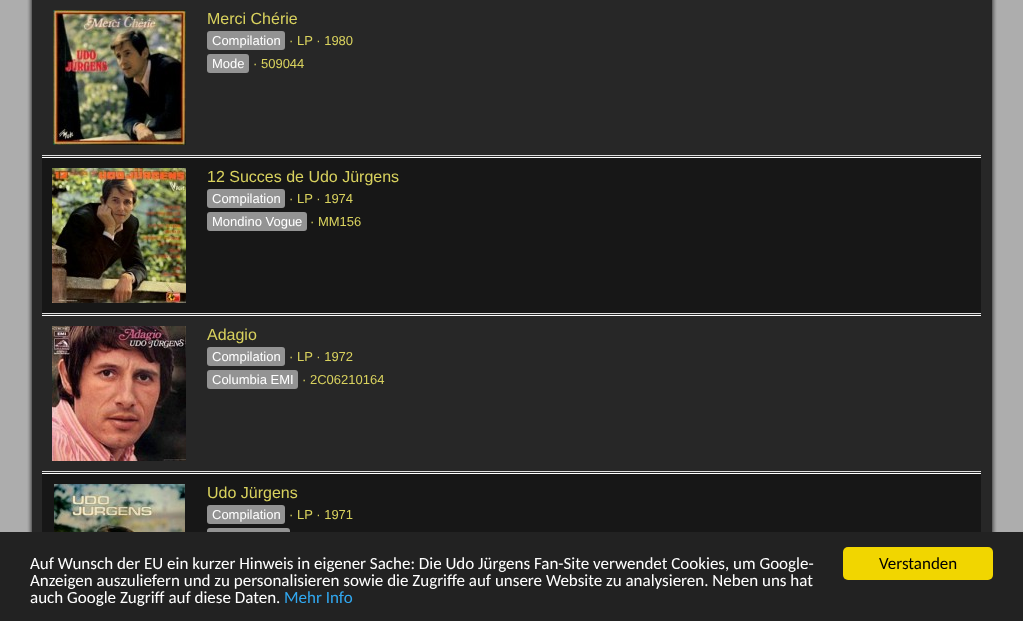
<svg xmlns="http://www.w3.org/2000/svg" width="1023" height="621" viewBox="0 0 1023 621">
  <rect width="100%" height="100%" fill="rgb(173,173,173)"/>
  <image x="27" y="0" width="970" height="532" href="pic1.png"/>
  <rect x="42" y="155" width="939" height="1" fill="rgb(222,222,222)"/>
  <image x="53" y="10" width="133" height="135" href="pic2.png"/>
  <text x="207" y="24" font-family="Liberation Sans" font-size="16" fill="rgb(217,210,94)">Merci Chérie</text>
  <rect x="207" y="31" width="78" height="19" rx="3" fill="rgb(147,147,147)"/>
  <text x="212" y="45" font-family="Liberation Sans" font-size="13" fill="rgb(255,255,255)">Compilation</text>
  <text x="289" y="45" font-family="Liberation Sans" font-size="13" fill="rgb(217,210,94)">· LP · 1980</text>
  <rect x="207" y="54" width="42" height="19" rx="3" fill="rgb(147,147,147)"/>
  <text x="212" y="68" font-family="Liberation Sans" font-size="13" fill="rgb(255,255,255)">Mode</text>
  <text x="253" y="68" font-family="Liberation Sans" font-size="13" fill="rgb(217,210,94)">· 509044</text>
  <rect x="42" y="158" width="939" height="155" fill="rgb(23,23,23)"/>
  <rect x="42" y="157" width="939" height="1" fill="rgb(255,255,255)"/>
  <rect x="42" y="313" width="939" height="1" fill="rgb(222,222,222)"/>
  <image x="52" y="168" width="134" height="135" href="pic3.png"/>
  <text x="207" y="182" font-family="Liberation Sans" font-size="16" fill="rgb(217,210,94)">12 Succes de Udo Jürgens</text>
  <rect x="207" y="189" width="78" height="19" rx="3" fill="rgb(147,147,147)"/>
  <text x="212" y="203" font-family="Liberation Sans" font-size="13" fill="rgb(255,255,255)">Compilation</text>
  <text x="289" y="203" font-family="Liberation Sans" font-size="13" fill="rgb(217,210,94)">· LP · 1974</text>
  <rect x="207" y="212" width="100" height="19" rx="3" fill="rgb(147,147,147)"/>
  <text x="212" y="226" font-family="Liberation Sans" font-size="13" fill="rgb(255,255,255)">Mondino Vogue</text>
  <text x="310" y="226" font-family="Liberation Sans" font-size="13" fill="rgb(217,210,94)">· MM156</text>
  <rect x="42" y="315" width="939" height="1" fill="rgb(255,255,255)"/>
  <rect x="42" y="471" width="939" height="1" fill="rgb(222,222,222)"/>
  <image x="52" y="326" width="134" height="135" href="pic4.png"/>
  <text x="207" y="340" font-family="Liberation Sans" font-size="16" fill="rgb(217,210,94)">Adagio</text>
  <rect x="207" y="347" width="78" height="19" rx="3" fill="rgb(147,147,147)"/>
  <text x="212" y="361" font-family="Liberation Sans" font-size="13" fill="rgb(255,255,255)">Compilation</text>
  <text x="289" y="361" font-family="Liberation Sans" font-size="13" fill="rgb(217,210,94)">· LP · 1972</text>
  <rect x="207" y="370" width="91" height="19" rx="3" fill="rgb(147,147,147)"/>
  <text x="212" y="384" font-family="Liberation Sans" font-size="13" fill="rgb(255,255,255)">Columbia EMI</text>
  <text x="302" y="384" font-family="Liberation Sans" font-size="13" fill="rgb(217,210,94)">· 2C06210164</text>
  <rect x="42" y="474" width="939" height="58" fill="rgb(23,23,23)"/>
  <rect x="42" y="473" width="939" height="1" fill="rgb(255,255,255)"/>
  <image x="54" y="484" width="131" height="48" href="pic5.png"/>
  <text x="207" y="498" font-family="Liberation Sans" font-size="16" fill="rgb(217,210,94)">Udo Jürgens</text>
  <rect x="207" y="505" width="78" height="19" rx="3" fill="rgb(147,147,147)"/>
  <text x="212" y="519" font-family="Liberation Sans" font-size="13" fill="rgb(255,255,255)">Compilation</text>
  <text x="289" y="519" font-family="Liberation Sans" font-size="13" fill="rgb(217,210,94)">· LP · 1971</text>
  <rect x="207" y="528" width="83" height="19" rx="3" fill="rgb(147,147,147)"/>
  <rect x="0" y="532" width="1023" height="89" fill="rgb(34,34,34)"/>
  <g font-family="Carlito" font-size="17" fill="rgb(255,255,255)">
    <text>
      <tspan x="30" y="569">Auf Wunsch der EU ein kurzer Hinweis in eigener Sache: Die Udo Jürgens Fan-Site verwendet Cookies, um Google-</tspan>
      <tspan x="30" y="586">Anzeigen auszuliefern und zu personalisieren sowie die Zugriffe auf unsere Website zu analysieren. Neben uns hat</tspan>
      <tspan x="30" y="603">auch Google Zugriff auf diese Daten.</tspan>
    </text>
  </g>
  <text x="284" y="603" font-family="Carlito" font-size="17" fill="rgb(49,168,240)">Mehr Info</text>
  <rect x="843" y="547" width="150" height="33" rx="5" fill="rgb(241,214,0)"/>
  <text x="879" y="569" font-family="Carlito" font-size="17" fill="rgb(0,0,0)">Verstanden</text>
</svg>
